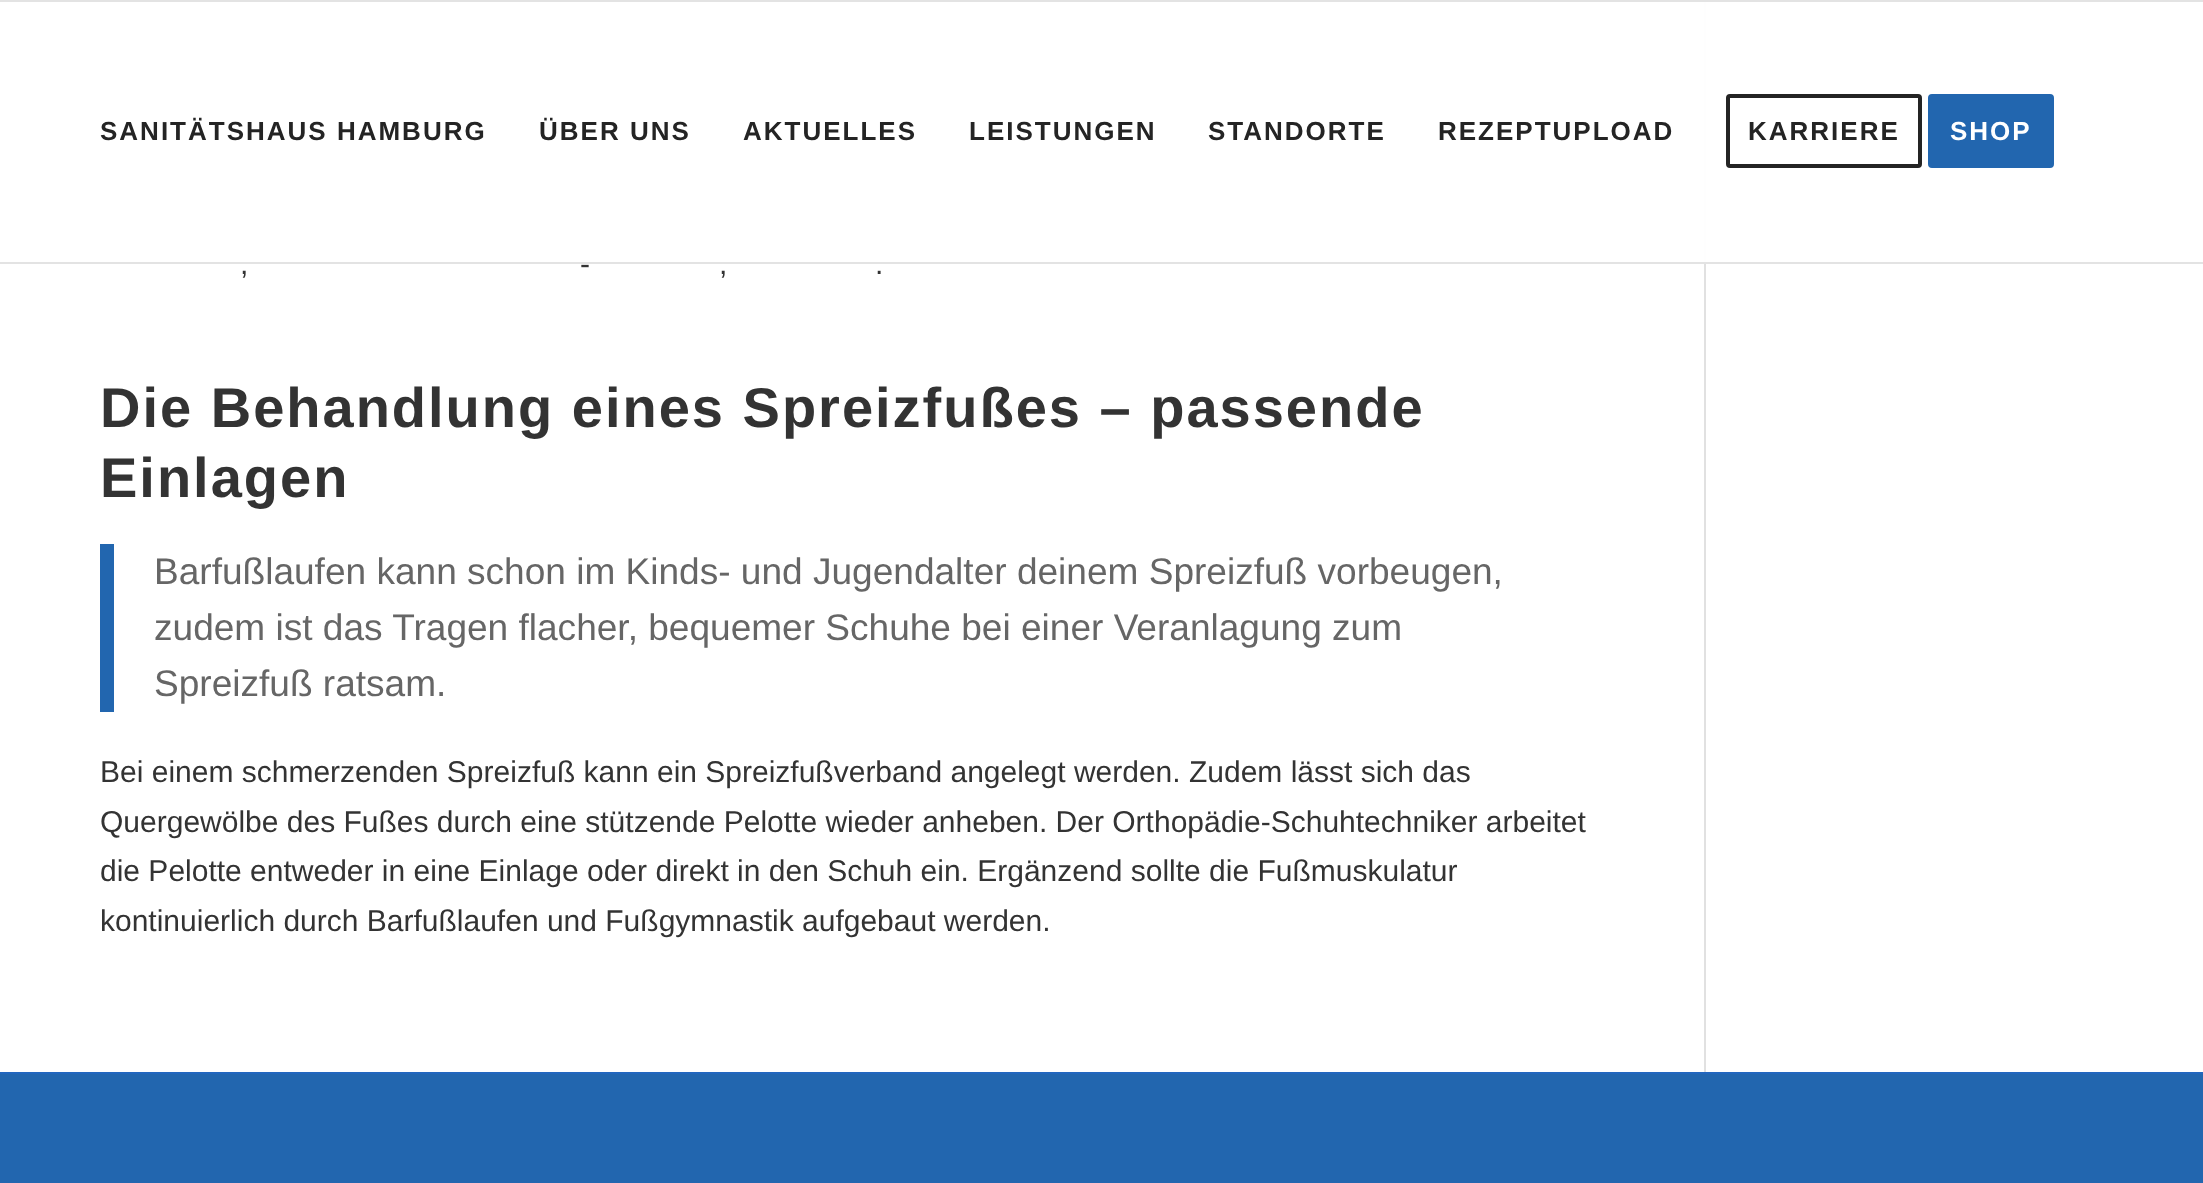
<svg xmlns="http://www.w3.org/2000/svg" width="2203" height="1183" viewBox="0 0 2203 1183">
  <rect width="100%" height="100%" fill="rgb(255,255,255)"/>
  <rect x="1704" y="0" width="2" height="1072" fill="rgb(225,225,225)"/>
  <rect x="1704" y="2" width="2" height="260" fill="rgba(255,255,255,0.95)"/>
  <rect x="0" y="0" width="2203" height="2" fill="rgb(227,227,227)"/>
  <rect x="0" y="262" width="2203" height="2" fill="rgb(227,227,227)"/>
  <g font-family="Liberation Sans" font-size="26" font-weight="bold" letter-spacing="2" fill="rgb(36,36,36)">
    <text x="100" y="140">SANITÄTSHAUS HAMBURG</text>
    <text x="539" y="140">ÜBER UNS</text>
    <text x="743" y="140">AKTUELLES</text>
    <text x="969" y="140">LEISTUNGEN</text>
    <text x="1208" y="140">STANDORTE</text>
    <text x="1438" y="140">REZEPTUPLOAD</text>
  </g>
  <rect x="1728" y="96" width="192" height="70" rx="2" fill="none" stroke="rgb(36,36,36)" stroke-width="4"/>
  <text x="1748" y="140" font-family="Liberation Sans" font-size="26" font-weight="bold" letter-spacing="2" fill="rgb(36,36,36)">KARRIERE</text>
  <rect x="1930" y="96" width="122" height="70" rx="2" fill="rgb(34,102,175)" stroke="rgb(34,102,175)" stroke-width="4"/>
  <text x="1950" y="140" font-family="Liberation Sans" font-size="26" font-weight="bold" letter-spacing="2" fill="rgb(255,255,255)">SHOP</text>
  <g font-family="Liberation Sans" font-size="30" fill="rgb(51,51,51)">
    <text x="580" y="274">-</text>
    <text x="240" y="274">,</text>
    <text x="719" y="274">,</text>
    <text x="875" y="274">.</text>
  </g>
  <g font-family="Liberation Sans" font-size="56" font-weight="bold" letter-spacing="2" fill="rgb(51,51,51)">
    <text>
      <tspan x="100" y="427">Die Behandlung eines Spreizfußes – passende</tspan>
      <tspan x="100" y="497">Einlagen</tspan>
    </text>
  </g>
  <rect x="100" y="544" width="14" height="168" fill="rgb(34,102,175)"/>
  <g font-family="Liberation Sans" font-size="37.05" fill="rgb(102,102,102)">
    <text>
      <tspan x="154" y="584">Barfußlaufen kann schon im Kinds- und Jugendalter deinem Spreizfuß vorbeugen,</tspan>
      <tspan x="154" y="640">zudem ist das Tragen flacher, bequemer Schuhe bei einer Veranlagung zum</tspan>
      <tspan x="154" y="696">Spreizfuß ratsam.</tspan>
    </text>
  </g>
  <g font-family="Liberation Sans" font-size="30" fill="rgb(51,51,51)">
    <text>
      <tspan x="100" y="782">Bei einem schmerzenden Spreizfuß kann ein Spreizfußverband angelegt werden. Zudem lässt sich das</tspan>
      <tspan x="100" y="832">Quergewölbe des Fußes durch eine stützende Pelotte wieder anheben. Der Orthopädie-Schuhtechniker arbeitet</tspan>
      <tspan x="100" y="881">die Pelotte entweder in eine Einlage oder direkt in den Schuh ein. Ergänzend sollte die Fußmuskulatur</tspan>
      <tspan x="100" y="931">kontinuierlich durch Barfußlaufen und Fußgymnastik aufgebaut werden.</tspan>
    </text>
  </g>
  <rect x="0" y="1074" width="2203" height="109" fill="rgb(34,102,175)"/>
  <rect x="0" y="1072" width="2203" height="2" fill="rgb(34,102,190)"/>
</svg>
